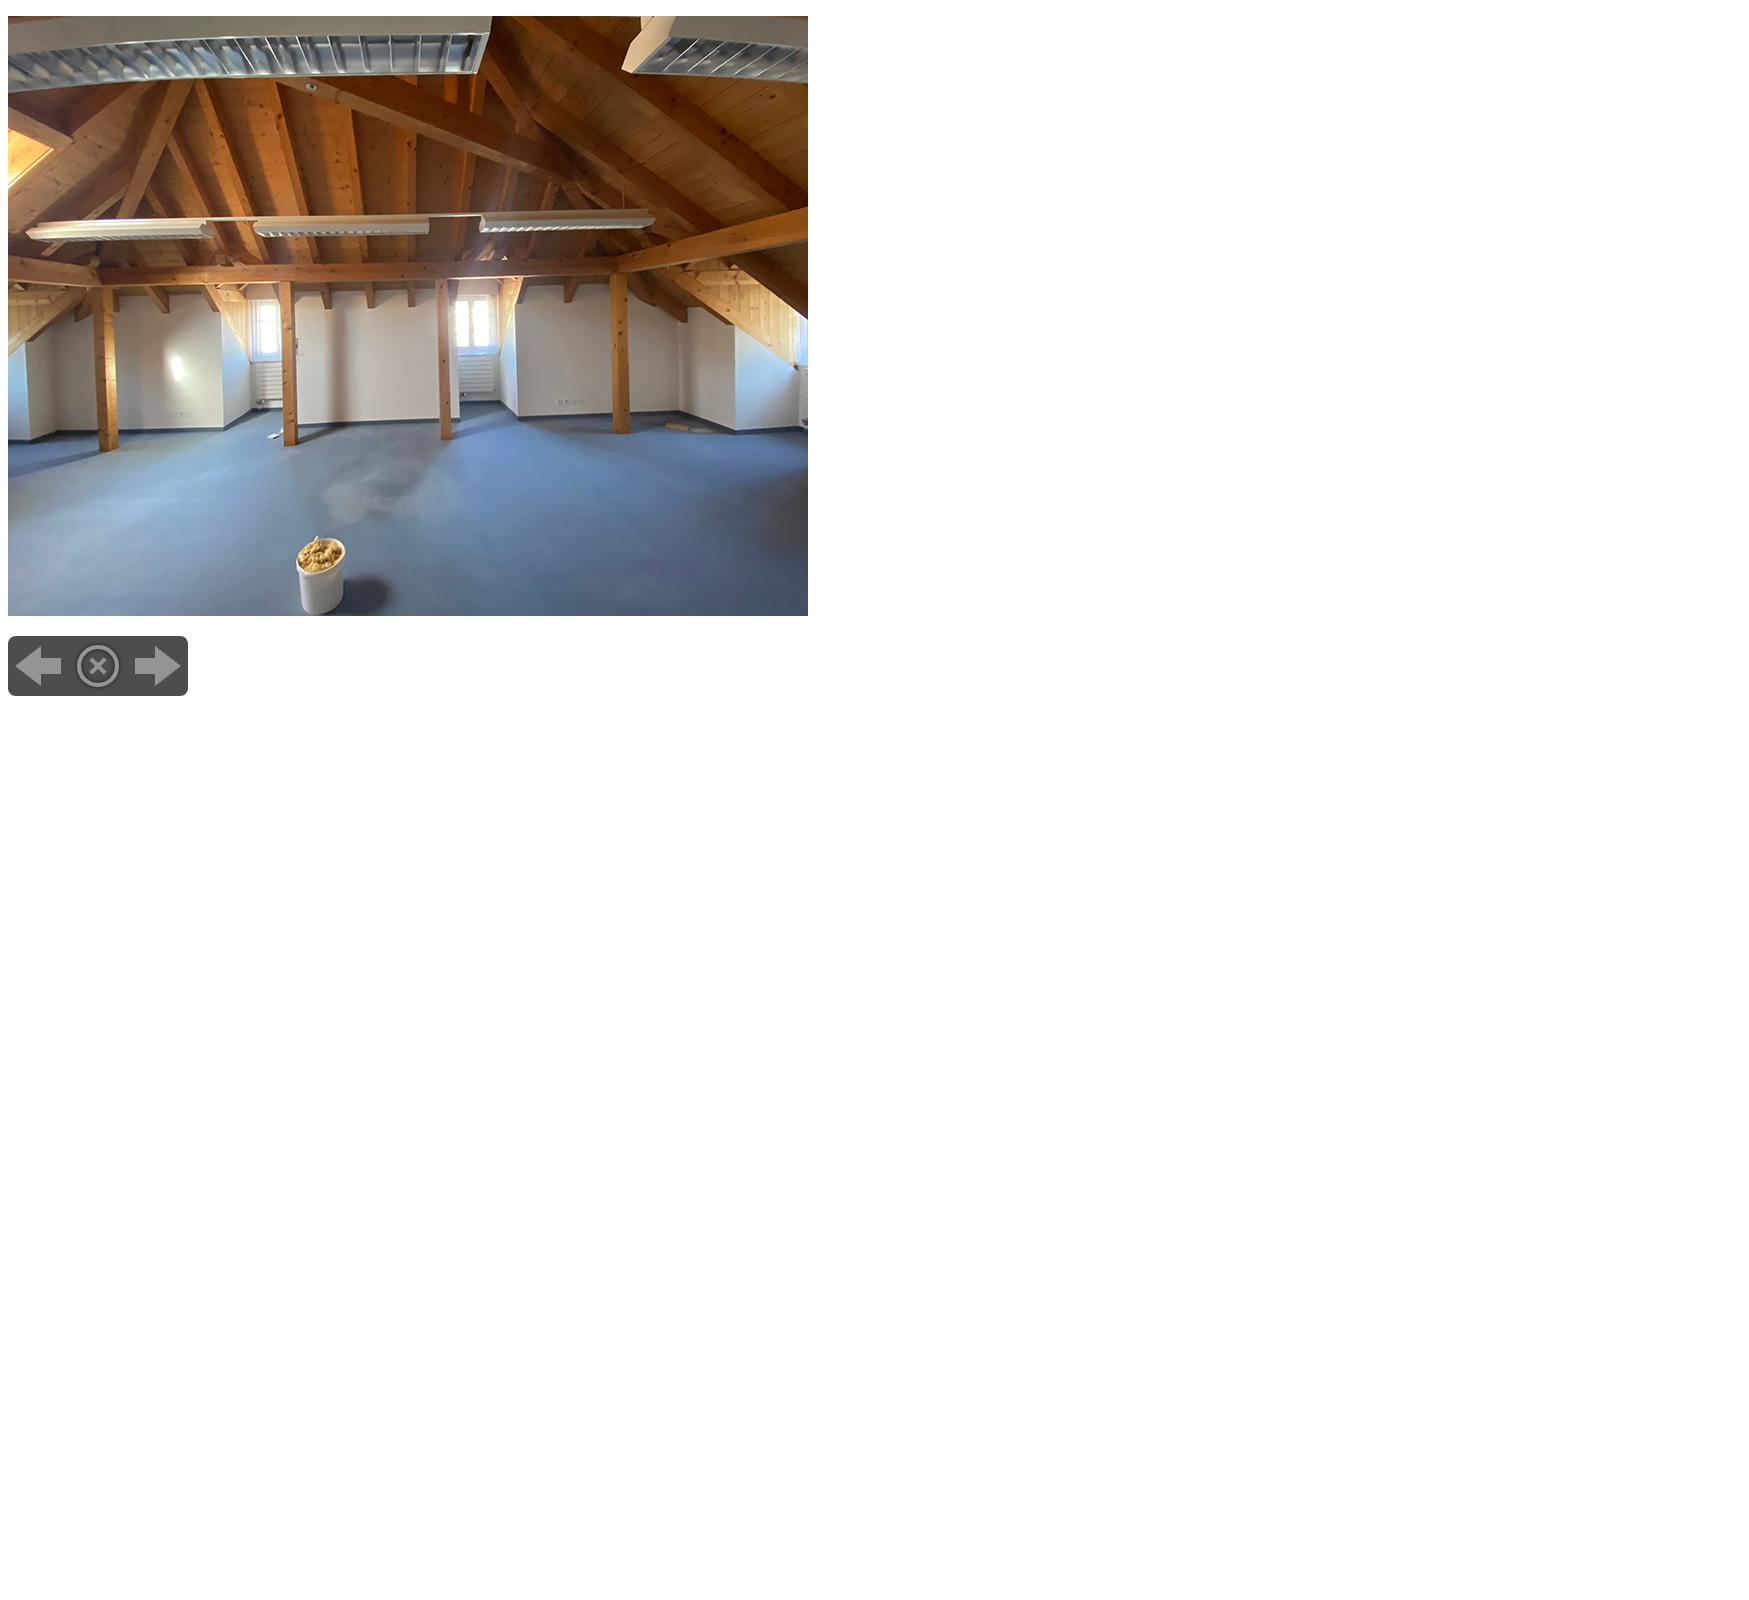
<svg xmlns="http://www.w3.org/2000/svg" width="1749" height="1600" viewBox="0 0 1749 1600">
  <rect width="100%" height="100%" fill="rgb(255,255,255)"/>
  <image x="8" y="16" width="800" height="600" href="pic1.png"/>
  <path d="M16 636H68V696H16C11.5 696 8 692.5 8 688V644C8 639.5 11.5 636 16 636Z" fill="rgb(77,77,77)"/>
  <image x="68" y="636" width="60" height="60" href="pic2.png"/>
  <path d="M128 636H180C184.5 636 188 639.5 188 644V688C188 692.5 184.5 696 180 696H128Z" fill="rgb(77,77,77)"/>
  <path d="M15 666L41 646V658H61V674H41V686Z" fill="rgb(148,148,148)" fill-rule="evenodd"/>
  <path d="M181 666L155 646V658H135V674H155V686Z" fill="rgb(148,148,148)" fill-rule="evenodd"/>
</svg>
